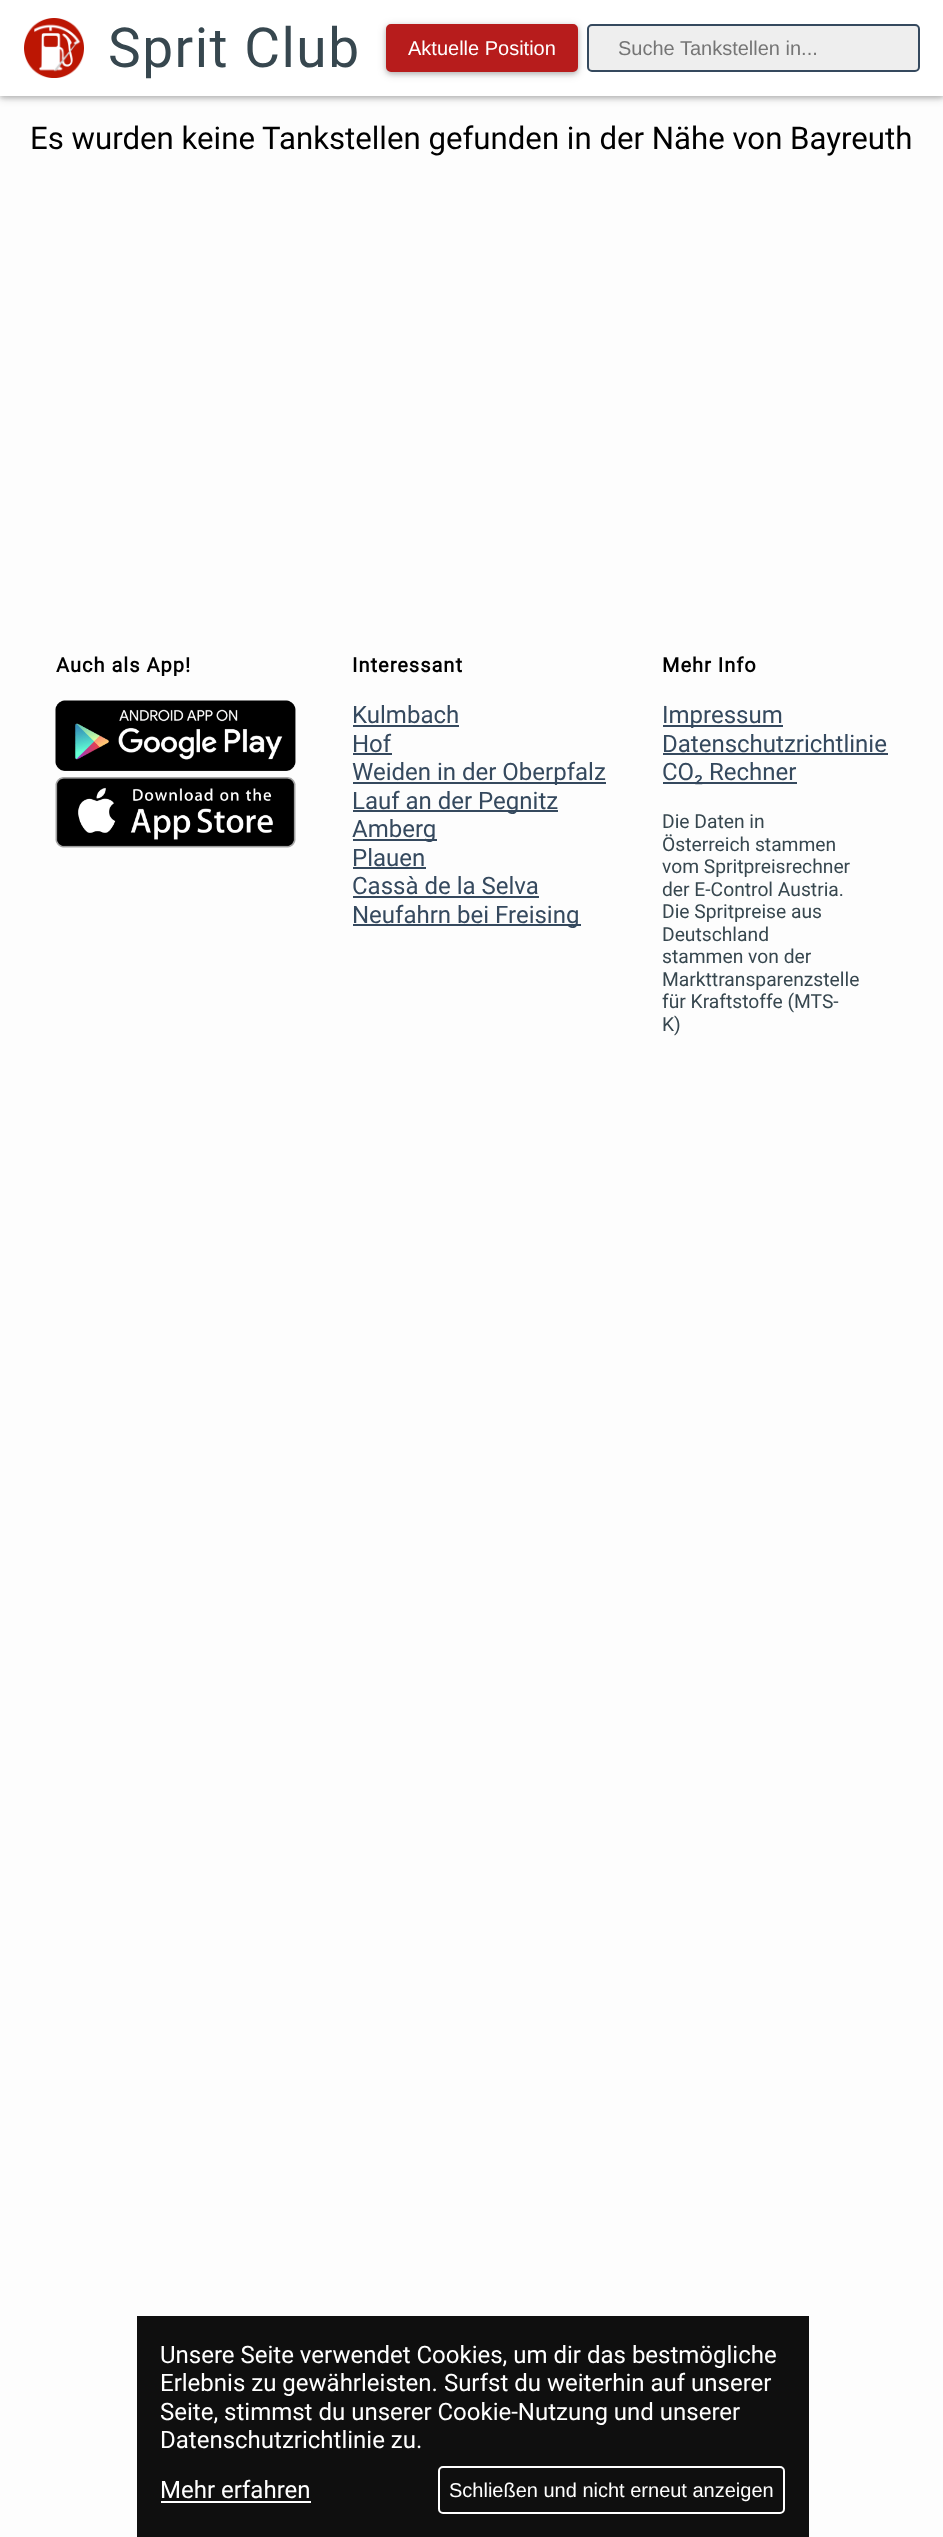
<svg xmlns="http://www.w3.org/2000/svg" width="943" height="2537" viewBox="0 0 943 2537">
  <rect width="100%" height="100%" fill="rgb(253,253,253)"/>
  <rect x="0" y="2" width="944" height="96" fill="rgba(0,0,0,0.2)" filter="blur(4px)"/>
  <rect x="0" y="2" width="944" height="96" fill="rgba(0,0,0,0.15)" filter="blur(2px)"/>
  <rect x="0" y="0" width="943" height="96" fill="rgb(255,255,255)"/>
  <image x="24" y="18" width="60" height="60" href="pic1.png"/>
  <text x="108" y="67" font-family="Roboto" font-size="55" letter-spacing="1.5" fill="rgb(55,71,79)">Sprit Club</text>
  <rect x="386" y="26" width="192" height="48" rx="5" fill="rgba(0,0,0,0.2)" filter="blur(4px)"/>
  <rect x="386" y="26" width="192" height="48" rx="5" fill="rgba(0,0,0,0.15)" filter="blur(2px)"/>
  <rect x="387" y="25" width="190" height="46" rx="4" fill="rgb(183,28,28)" stroke="rgb(183,28,28)" stroke-width="2"/>
  <text x="408" y="55" font-family="Liberation Sans" font-size="20" fill="rgb(255,255,255)">Aktuelle Position</text>
  <rect x="588" y="25" width="331" height="46" rx="4" fill="rgb(238,238,238)" stroke="rgb(53,73,94)" stroke-width="2"/>
  <text x="618" y="55" font-family="Liberation Sans" font-size="20" fill="rgb(117,117,117)">Suche Tankstellen in...</text>
  <text x="30" y="149" font-family="Roboto" font-size="31.2" fill="rgb(0,0,0)">Es wurden keine Tankstellen gefunden in der Nähe von Bayreuth</text>
  <text x="56" y="672" font-family="Roboto" font-size="20" font-weight="bold" letter-spacing="1" fill="rgb(0,0,0)">Auch als App!</text>
  <image x="55" y="700" width="241" height="71" href="pic2.png"/>
  <image x="55" y="777" width="241" height="71" href="pic3.png"/>
  <text x="352" y="672" font-family="Roboto" font-size="20" font-weight="bold" letter-spacing="1" fill="rgb(0,0,0)">Interessant</text>
  <text x="352" y="723" font-family="Roboto" font-size="24" fill="rgb(53,73,94)">Kulmbach</text>
  <rect x="353" y="725" width="106" height="2" fill="rgb(53,73,94)"/>
  <text x="352" y="752" font-family="Roboto" font-size="24" fill="rgb(53,73,94)">Hof</text>
  <rect x="353" y="753" width="39" height="2" fill="rgb(53,73,94)"/>
  <rect x="353" y="782" width="253" height="2" fill="rgb(53,73,94)"/>
  <text x="352" y="780" font-family="Roboto" font-size="24" fill="rgb(53,73,94)">Weiden in der Oberpfalz</text>
  <rect x="353" y="810" width="205" height="2" fill="rgb(53,73,94)"/>
  <text x="352" y="809" font-family="Roboto" font-size="24" fill="rgb(53,73,94)">Lauf an der Pegnitz</text>
  <rect x="353" y="839" width="84" height="2" fill="rgb(53,73,94)"/>
  <g font-family="Roboto" font-size="24" fill="rgb(53,73,94)">
    <text>
      <tspan x="352" y="837">Amberg</tspan>
      <tspan x="352" y="866">Plauen</tspan>
    </text>
  </g>
  <rect x="353" y="867" width="73" height="2" fill="rgb(53,73,94)"/>
  <text x="352" y="894" font-family="Roboto" font-size="24" fill="rgb(53,73,94)">Cassà de la Selva</text>
  <rect x="353" y="896" width="186" height="2" fill="rgb(53,73,94)"/>
  <rect x="353" y="924" width="228" height="2" fill="rgb(53,73,94)"/>
  <text x="352" y="923" font-family="Roboto" font-size="24" fill="rgb(53,73,94)">Neufahrn bei Freising</text>
  <text x="662" y="672" font-family="Roboto" font-size="20" font-weight="bold" letter-spacing="1" fill="rgb(0,0,0)">Mehr Info</text>
  <rect x="663" y="725" width="120" height="2" fill="rgb(53,73,94)"/>
  <g font-family="Roboto" font-size="24" fill="rgb(53,73,94)">
    <text>
      <tspan x="662" y="723">Impressum</tspan>
      <tspan x="662" y="752">Datenschutzrichtlinie</tspan>
    </text>
  </g>
  <rect x="663" y="753" width="225" height="2" fill="rgb(53,73,94)"/>
  <rect x="663" y="782" width="134" height="2" fill="rgb(53,73,94)"/>
  <text x="662" y="780" font-family="Roboto" font-size="24" fill="rgb(53,73,94)">CO₂ Rechner</text>
  <g font-family="Roboto" font-size="19.25" fill="rgb(55,71,79)">
    <text>
      <tspan x="662" y="828">Die Daten in</tspan>
      <tspan x="662" y="851">Österreich stammen</tspan>
      <tspan x="662" y="873">vom Spritpreisrechner</tspan>
      <tspan x="662" y="896">der E-Control Austria.</tspan>
      <tspan x="662" y="918">Die Spritpreise aus</tspan>
      <tspan x="662" y="941">Deutschland</tspan>
      <tspan x="662" y="963">stammen von der</tspan>
      <tspan x="662" y="986">Markttransparenzstelle</tspan>
      <tspan x="662" y="1008">für Kraftstoffe (MTS-</tspan>
      <tspan x="662" y="1031">K)</tspan>
    </text>
  </g>
  <rect x="137" y="2316" width="672" height="221" fill="rgb(15,15,15)"/>
  <g font-family="Roboto" font-size="24" fill="rgb(255,255,255)">
    <text>
      <tspan x="160" y="2363">Unsere Seite verwendet Cookies, um dir das bestmögliche</tspan>
      <tspan x="160" y="2391">Erlebnis zu gewährleisten. Surfst du weiterhin auf unserer</tspan>
      <tspan x="160" y="2420">Seite, stimmst du unserer Cookie-Nutzung und unserer</tspan>
      <tspan x="160" y="2448">Datenschutzrichtlinie zu.</tspan>
    </text>
    <text x="160" y="2498">Mehr erfahren</text>
  </g>
  <rect x="161" y="2501" width="150" height="2" fill="rgb(255,255,255)"/>
  <rect x="439" y="2467" width="345" height="46" rx="4" fill="none" stroke="rgb(255,255,255)" stroke-width="2"/>
  <text x="449" y="2497" font-family="Liberation Sans" font-size="20" fill="rgb(255,255,255)">Schließen und nicht erneut anzeigen</text>
</svg>
